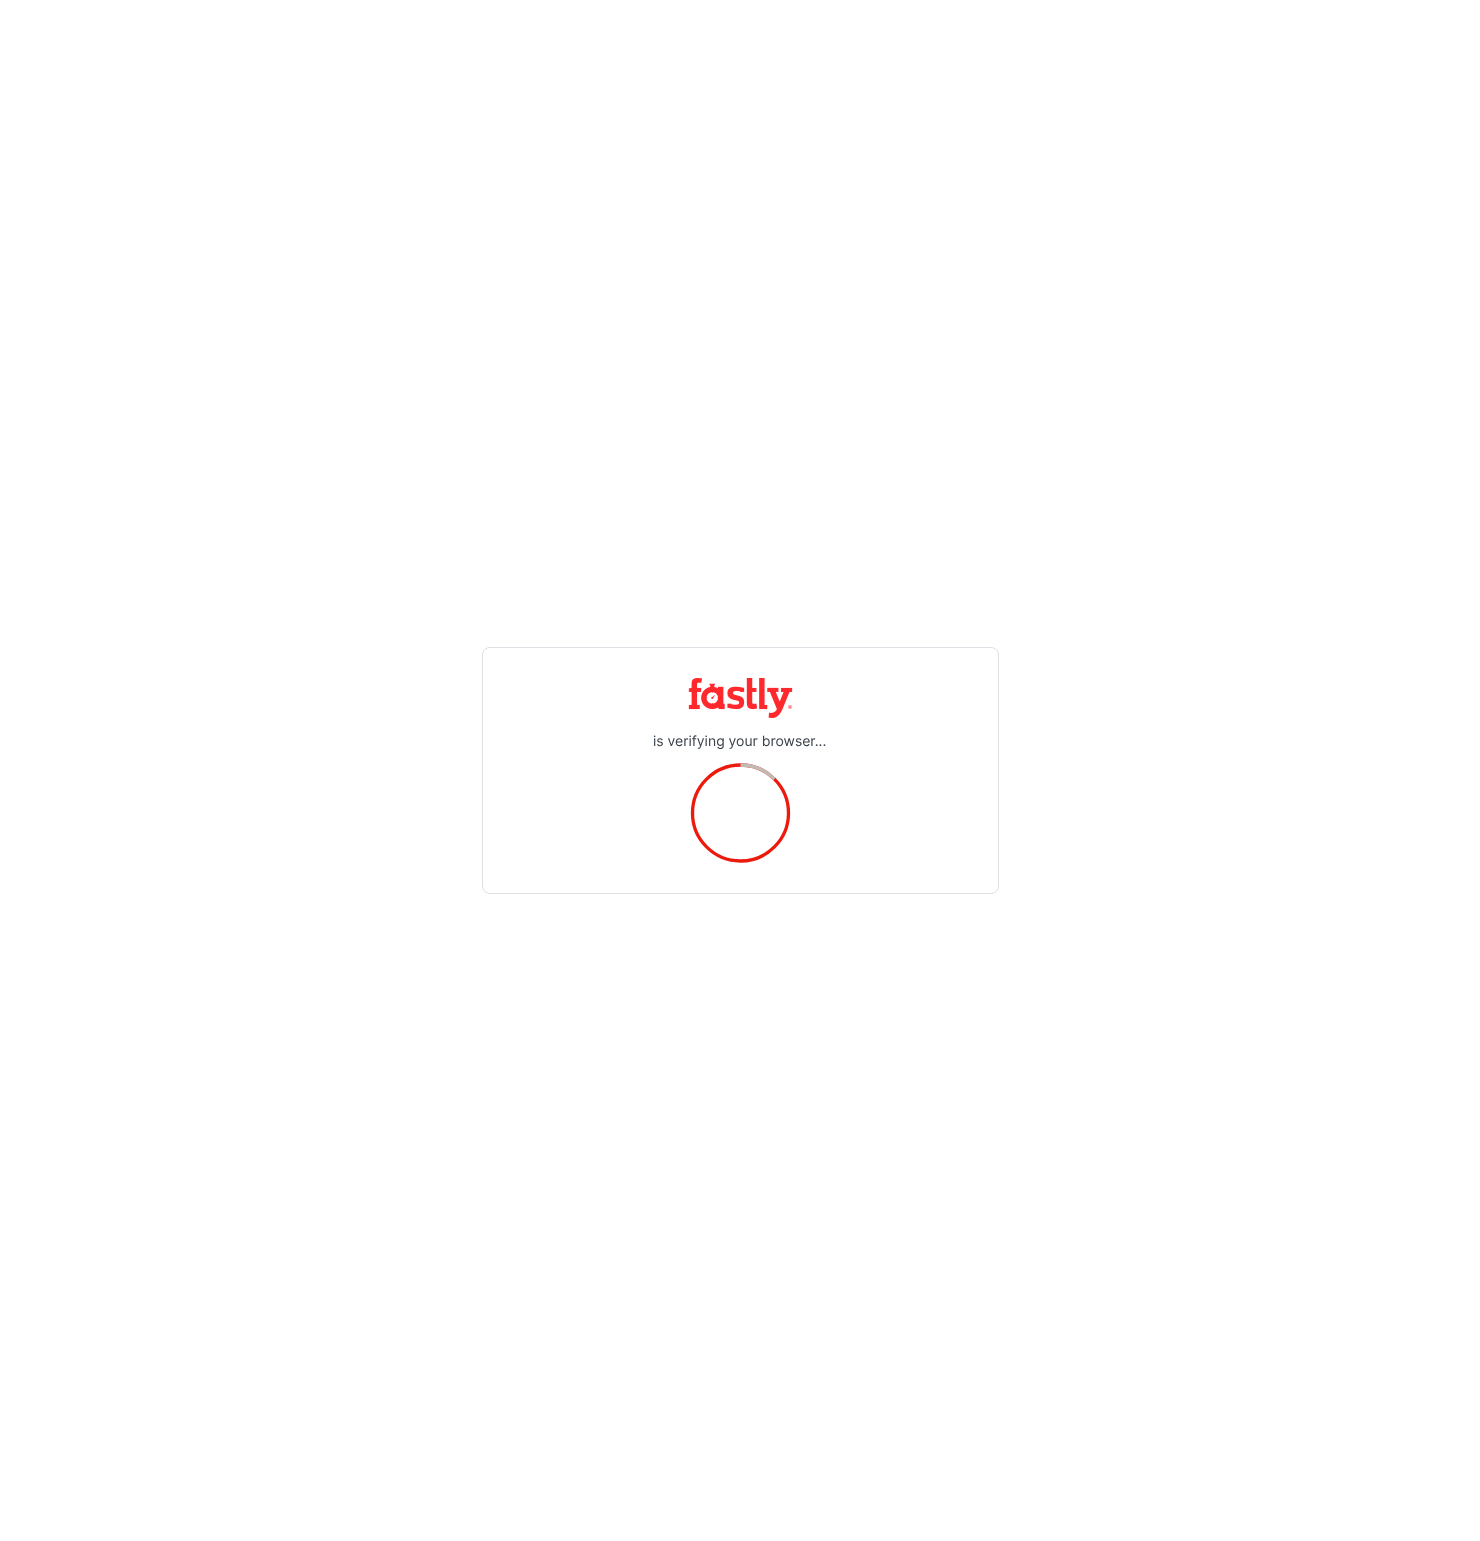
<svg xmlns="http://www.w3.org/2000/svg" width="1480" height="1541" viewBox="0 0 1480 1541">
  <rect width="100%" height="100%" fill="rgb(255,255,255)"/>
  <rect x="482.5" y="647.5" width="516" height="246" rx="7.5" fill="none" stroke="rgb(220,224,228)"/>
  <image x="688" y="678" width="105" height="40" href="pic1.png"/>
  <text x="653" y="746" font-family="Inter" font-size="14" fill="rgb(58,66,74)">is verifying your browser...</text>
  <path d="M692.5 813C692.5 786.5 714 765 740.5 765C767 765 788.5 786.5 788.5 813C788.5 839.5 767 861 740.5 861C714 861 692.5 839.5 692.5 813Z" fill="none" stroke="rgb(235,26,12)" stroke-width="3.3"/>
  <path d="M774.5 779C765.5 770 753 765 740.5 765" fill="none" stroke="rgb(194,186,181)" stroke-width="3.3"/>
</svg>
